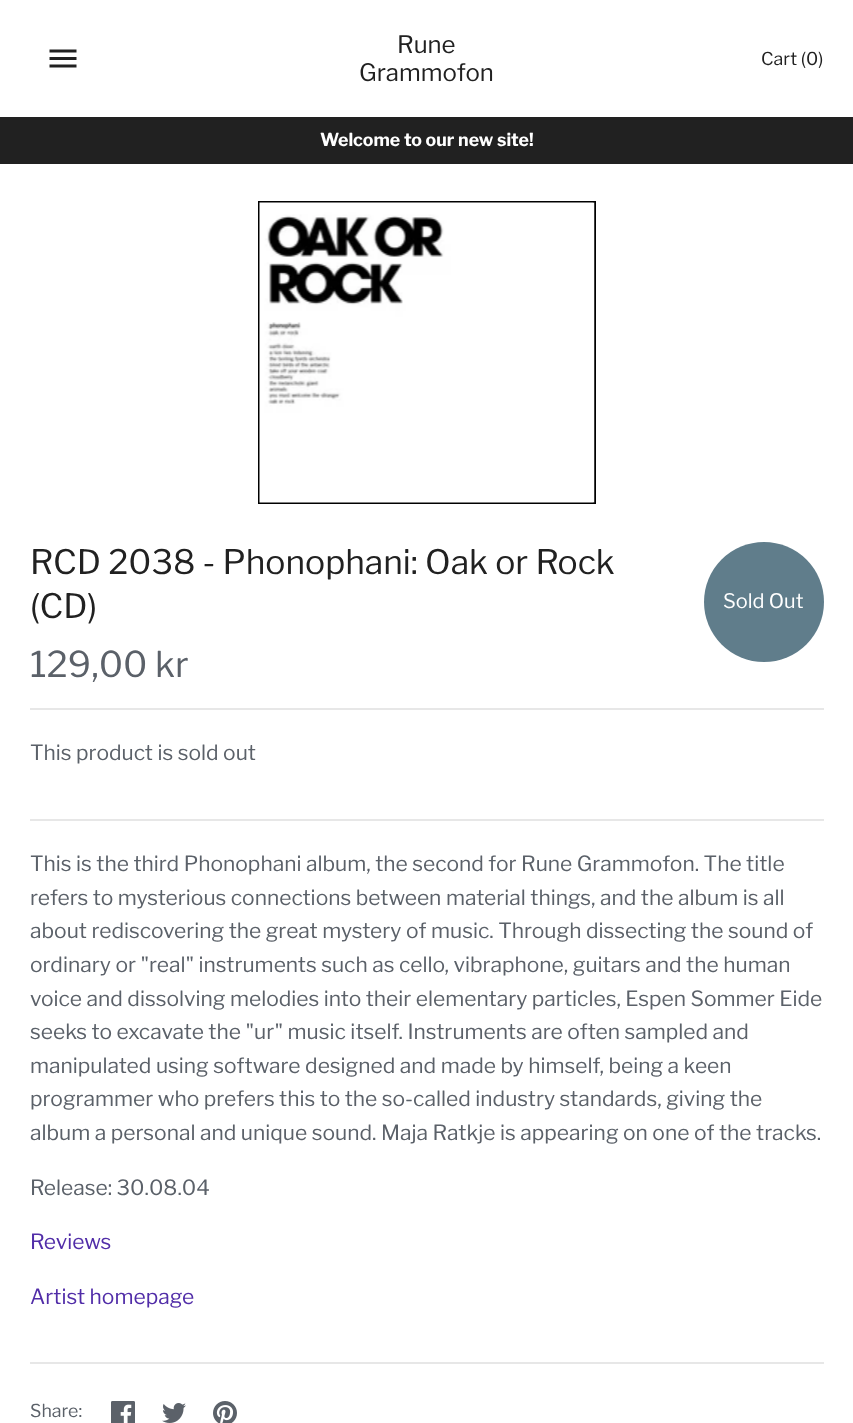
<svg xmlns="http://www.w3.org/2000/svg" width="853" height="1423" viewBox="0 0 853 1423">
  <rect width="100%" height="100%" fill="rgb(255,255,255)"/>
  <image x="49" y="49" width="28" height="19" href="pic1.png"/>
  <g font-family="Libre Franklin" font-size="24" fill="rgb(33,33,33)">
    <text x="397" y="53">Rune</text>
    <text x="359" y="81">Grammofon</text>
  </g>
  <text x="761" y="65" font-family="Libre Franklin" font-size="17.8" fill="rgb(33,33,33)">Cart (0)</text>
  <rect x="0" y="117" width="853" height="47" fill="rgb(33,33,33)"/>
  <text x="320" y="146" font-family="Libre Franklin" font-size="17.8" font-weight="bold" fill="rgb(255,255,255)">Welcome to our new site!</text>
  <rect x="259" y="202" width="336" height="301" fill="none" stroke="rgb(0,0,0)" stroke-width="2"/>
  <image x="259" y="202" width="336" height="301" href="pic2.png"/>
  <g font-family="Libre Franklin" font-size="33.6" fill="rgb(33,33,33)">
    <text>
      <tspan x="30" y="574">RCD 2038 - Phonophani: Oak or Rock</tspan>
      <tspan x="30" y="618">(CD)</tspan>
    </text>
  </g>
  <circle cx="764" cy="602" r="60" fill="rgb(96,125,139)"/>
  <text x="723" y="608" font-family="Libre Franklin" font-size="20" fill="rgb(255,255,255)">Sold Out</text>
  <text x="30" y="677" font-family="Libre Franklin" font-size="35.5" fill="rgb(91,97,105)">129,00 kr</text>
  <rect x="30" y="708" width="794" height="2" fill="rgb(231,231,231)"/>
  <text x="30" y="760" font-family="Libre Franklin" font-size="21" fill="rgb(91,97,105)">This product is sold out</text>
  <rect x="30" y="819" width="794" height="2" fill="rgb(231,231,231)"/>
  <g font-family="Libre Franklin" font-size="21" fill="rgb(91,97,105)">
    <text>
      <tspan x="30" y="871">This is the third Phonophani album, the second for Rune Grammofon. The title</tspan>
      <tspan x="30" y="905">refers to mysterious connections between material things, and the album is all</tspan>
      <tspan x="30" y="938">about rediscovering the great mystery of music. Through dissecting the sound of</tspan>
      <tspan x="30" y="972">ordinary or "real" instruments such as cello, vibraphone, guitars and the human</tspan>
      <tspan x="30" y="1006">voice and dissolving melodies into their elementary particles, Espen Sommer Eide</tspan>
      <tspan x="30" y="1039">seeks to excavate the "ur" music itself. Instruments are often sampled and</tspan>
      <tspan x="30" y="1073">manipulated using software designed and made by himself, being a keen</tspan>
      <tspan x="30" y="1106">programmer who prefers this to the so-called industry standards, giving the</tspan>
      <tspan x="30" y="1140">album a personal and unique sound. Maja Ratkje is appearing on one of the tracks.</tspan>
    </text>
    <text x="30" y="1195">Release: 30.08.04</text>
  </g>
  <g font-family="Libre Franklin" font-size="21" fill="rgb(81,45,168)">
    <text x="30" y="1249">Reviews</text>
    <text x="30" y="1304">Artist homepage</text>
  </g>
  <rect x="30" y="1362" width="794" height="2" fill="rgb(231,231,231)"/>
  <text x="30" y="1417" font-family="Libre Franklin" font-size="17.8" fill="rgb(91,97,105)">Share:</text>
  <image x="111" y="1401" width="24" height="22" href="pic3.png"/>
  <image x="162" y="1403" width="24" height="20" href="pic4.png"/>
  <image x="213" y="1401" width="24" height="22" href="pic5.png"/>
</svg>
